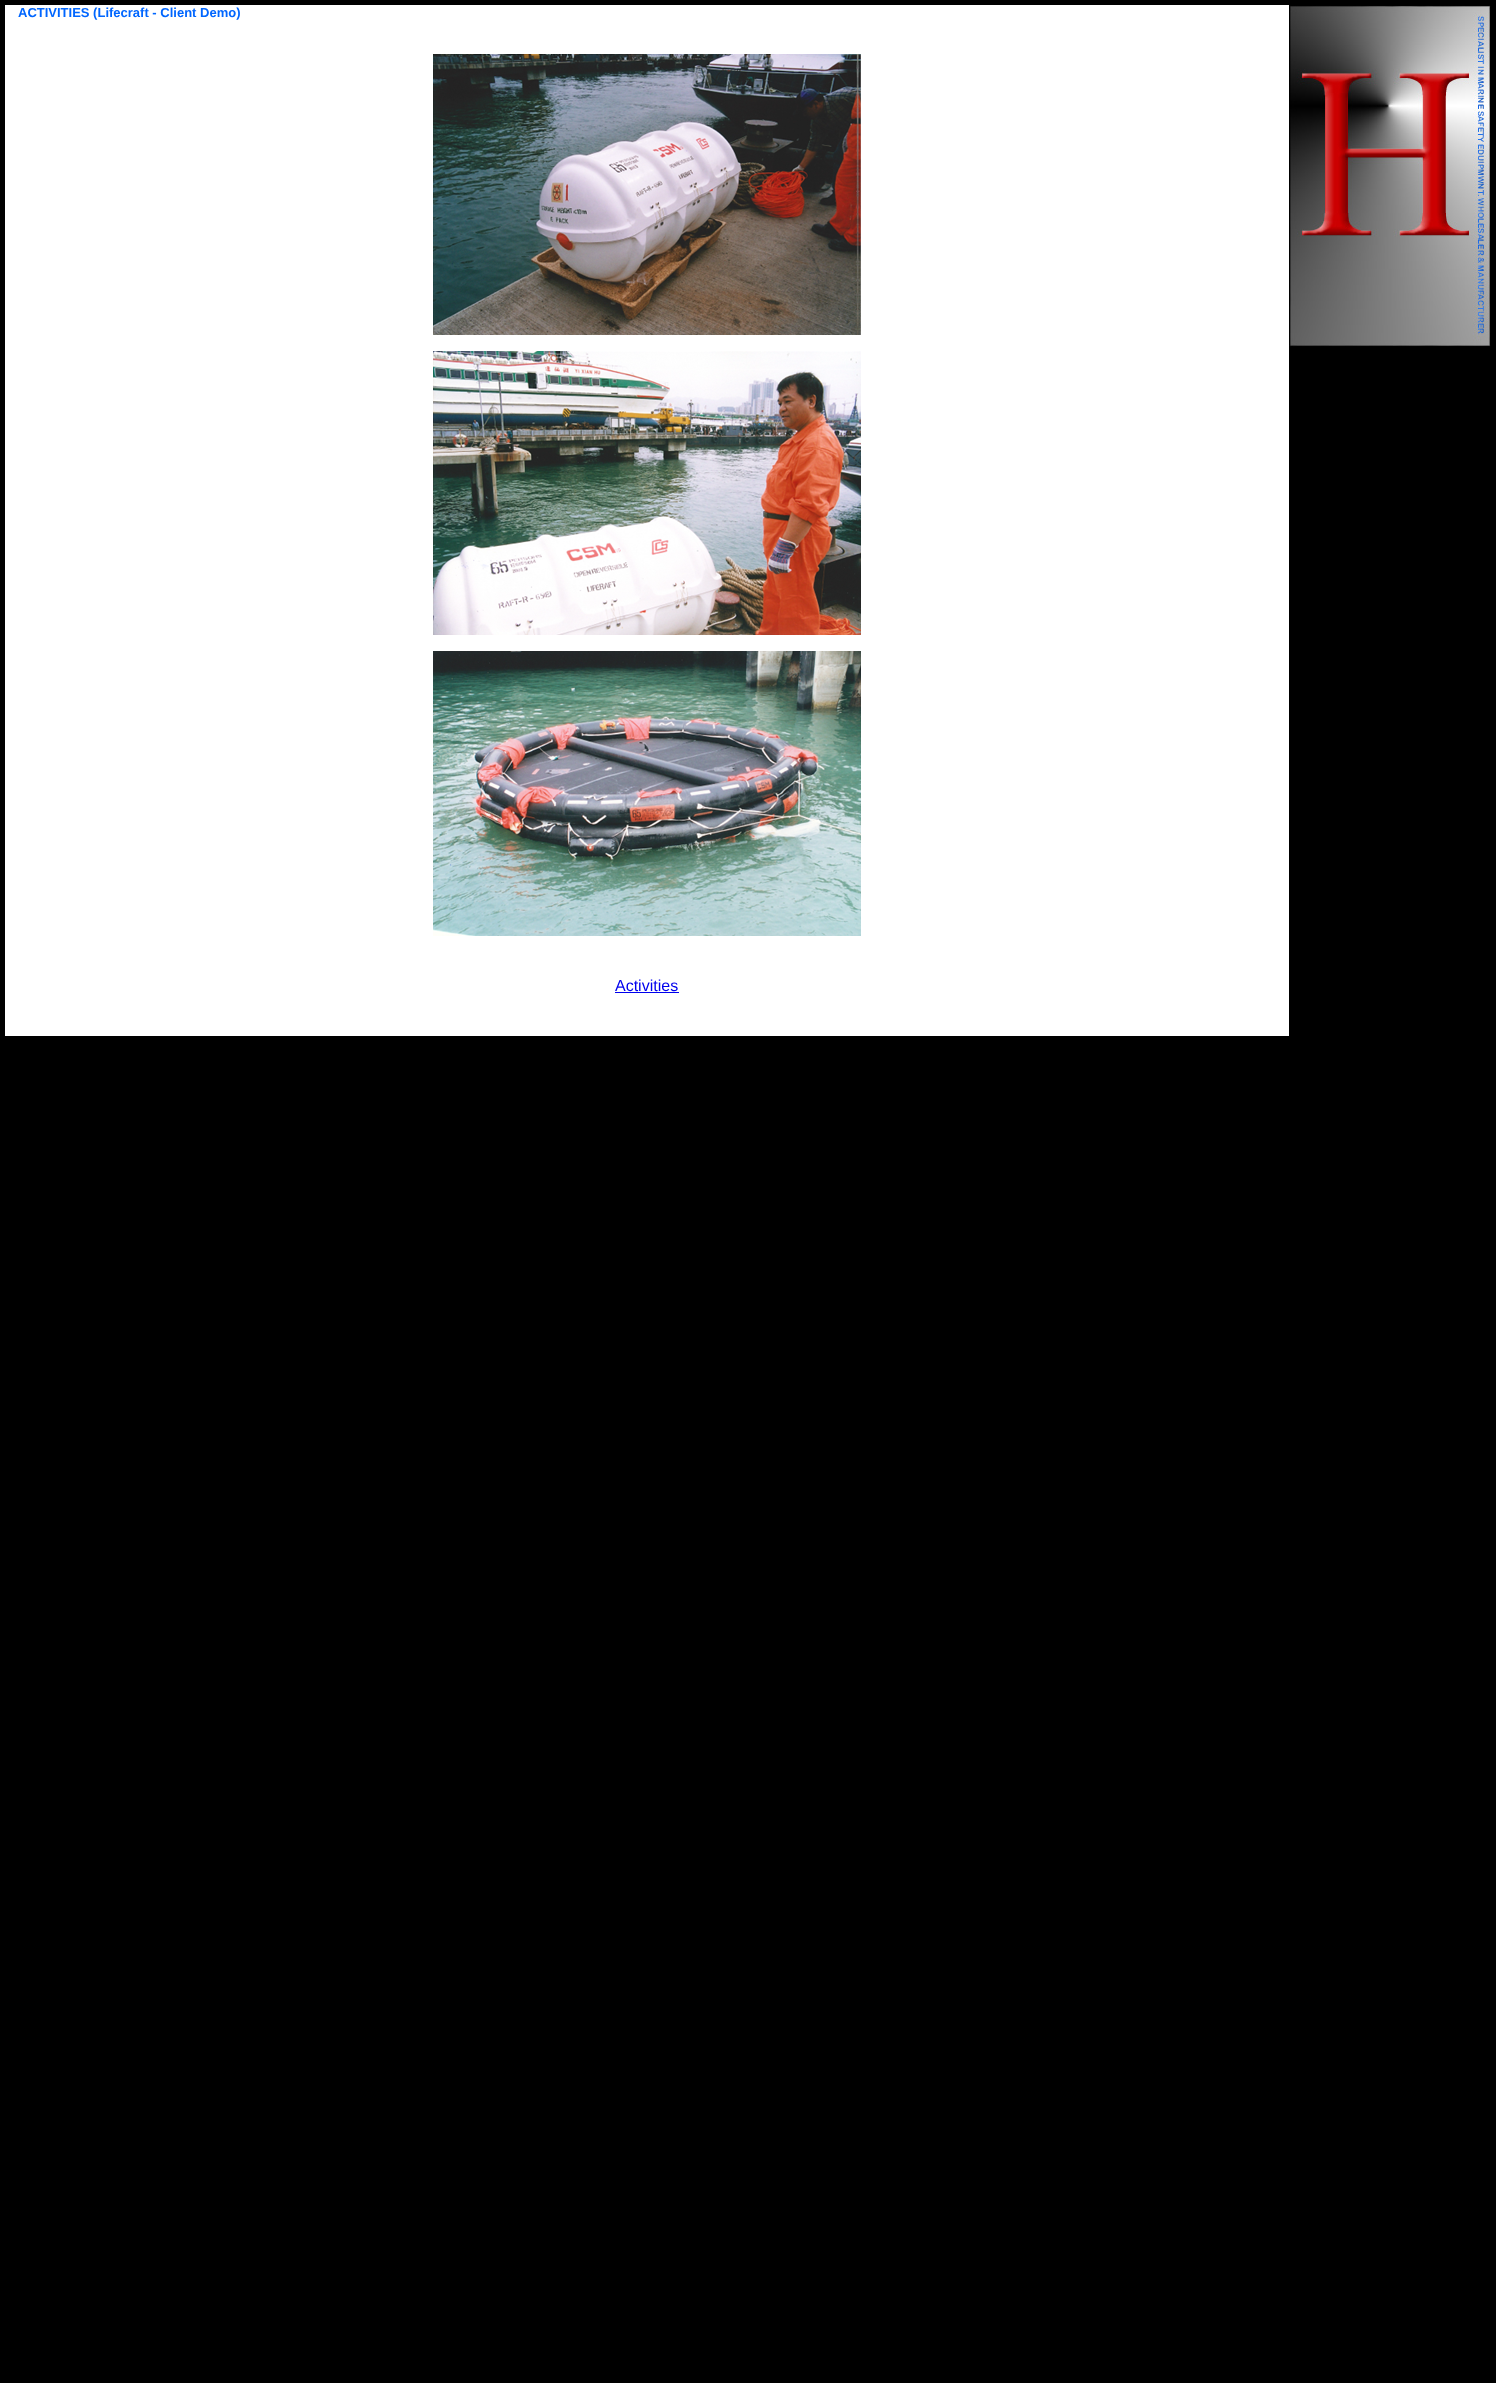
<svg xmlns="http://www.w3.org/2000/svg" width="1496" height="2383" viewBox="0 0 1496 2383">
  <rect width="100%" height="100%" fill="rgb(0,0,0)"/>
  <rect x="5" y="5" width="1284" height="1031" fill="rgb(255,255,255)"/>
  <text x="18" y="17" font-family="Liberation Sans" font-size="13" font-weight="bold" fill="rgb(0,102,255)">ACTIVITIES (Lifecraft - Client Demo)</text>
  <image x="433" y="54" width="428" height="281" href="pic1.png"/>
  <image x="433" y="351" width="428" height="284" href="pic2.png"/>
  <image x="433" y="651" width="428" height="285" href="pic3.png"/>
  <text x="615" y="991" font-family="Liberation Sans" font-size="16" fill="rgb(0,0,238)">Activities</text>
  <rect x="615" y="992" width="64" height="1" fill="rgb(0,0,238)"/>
  <image x="1289" y="5" width="202" height="342" href="pic4.png"/>
</svg>
